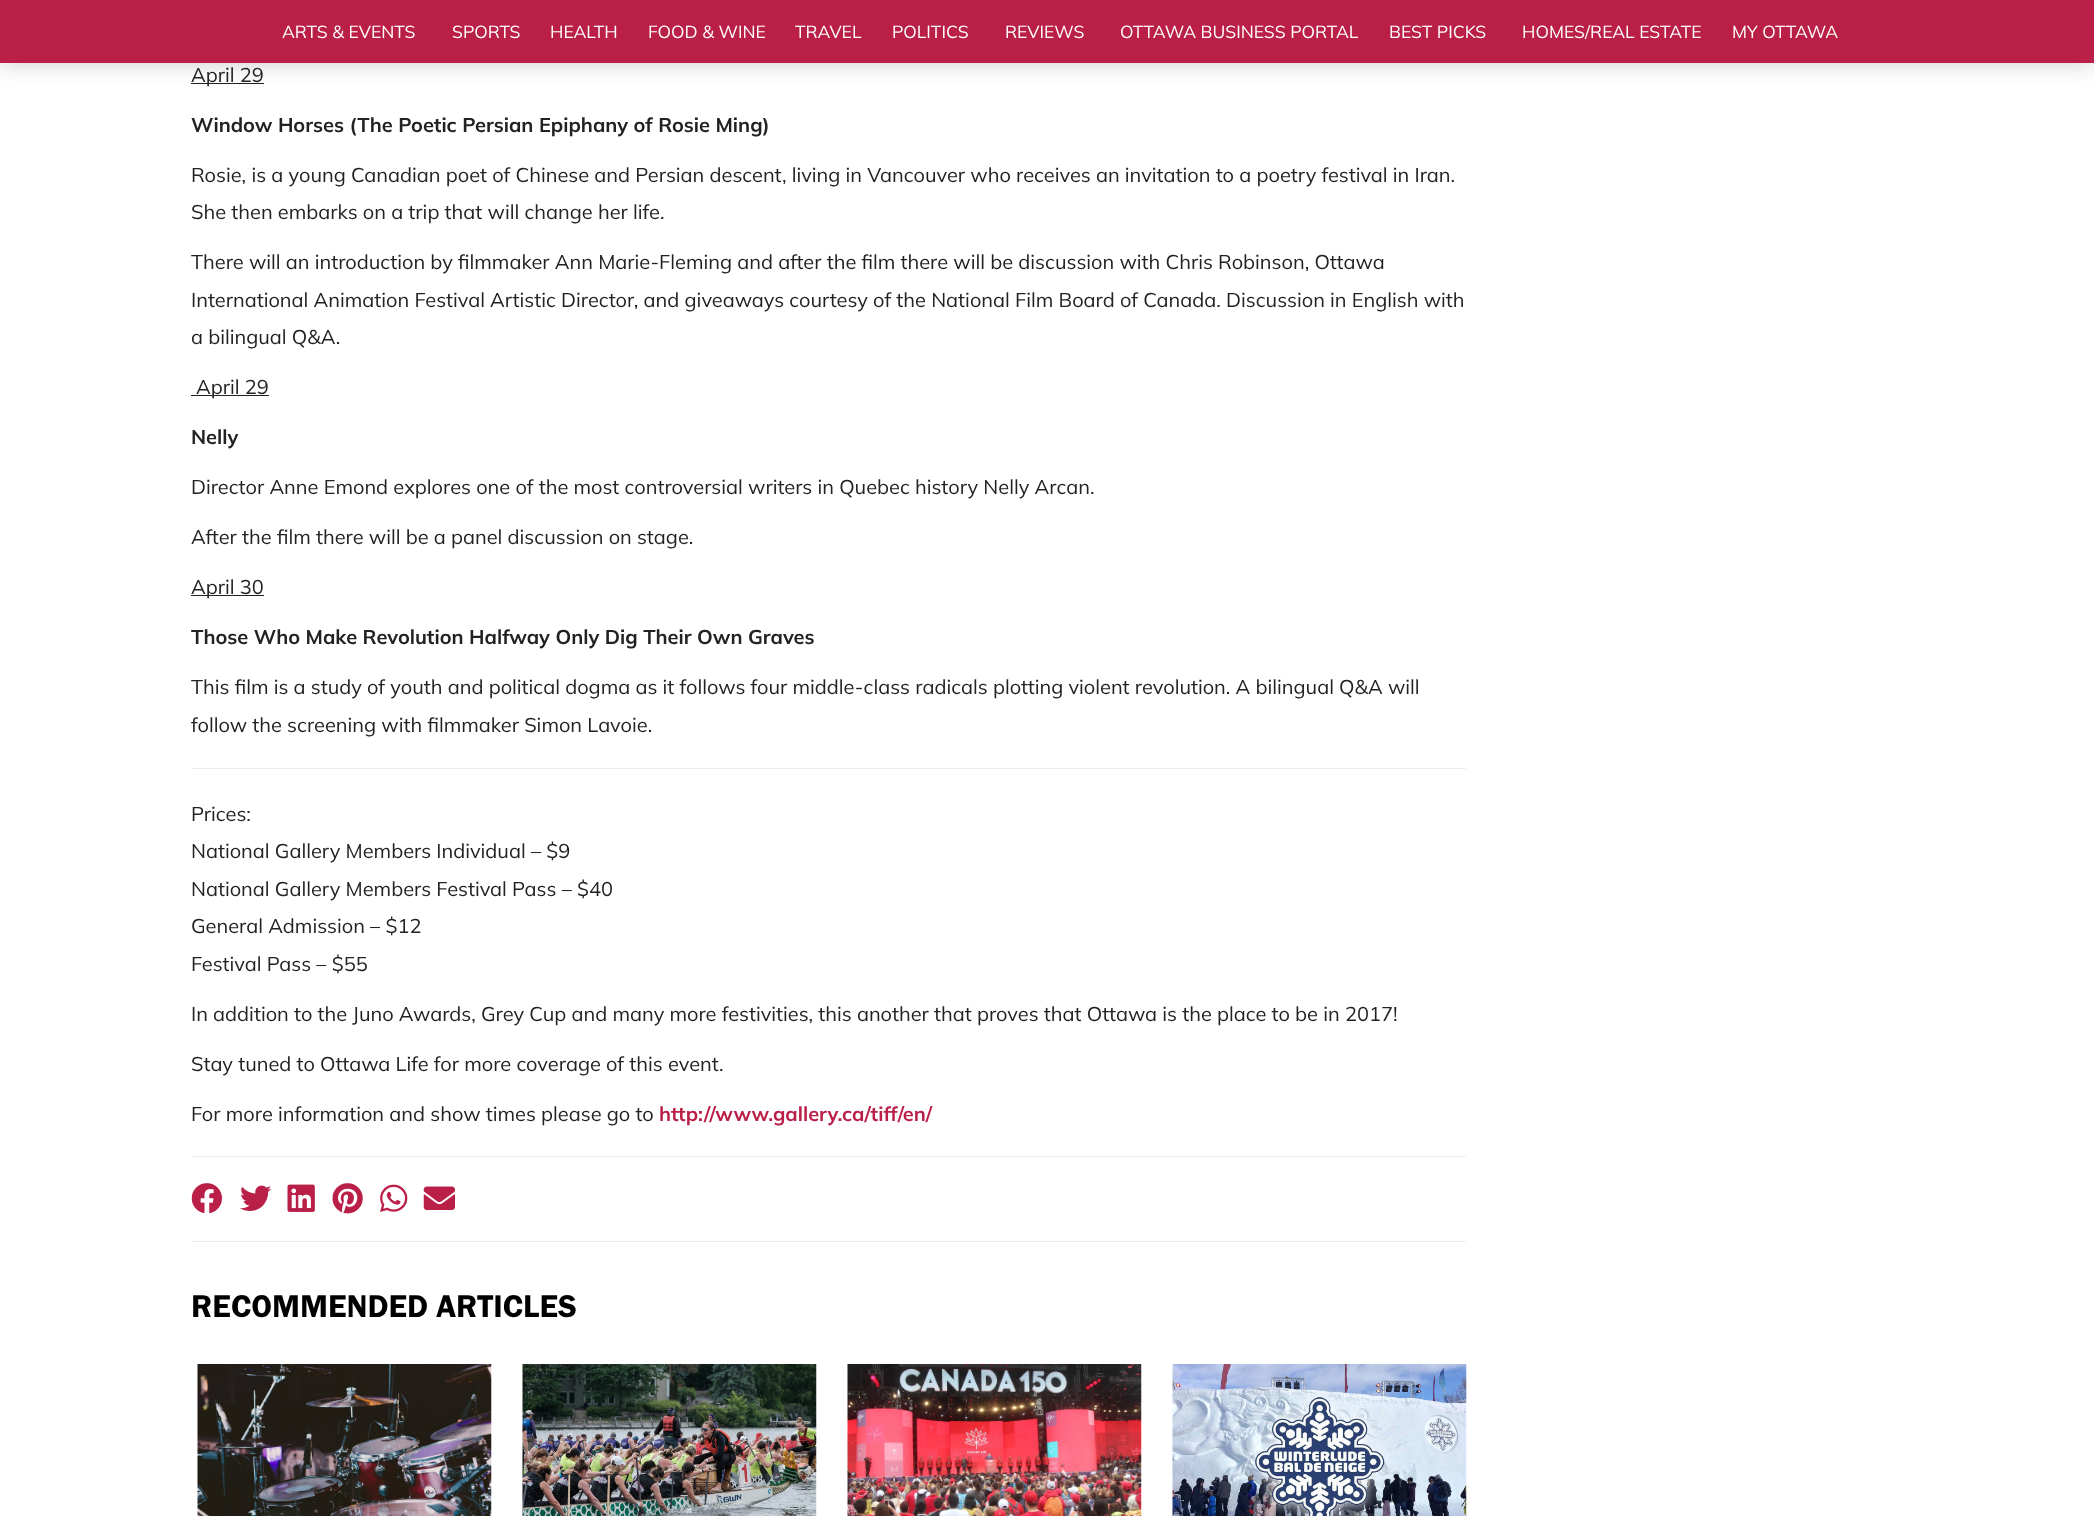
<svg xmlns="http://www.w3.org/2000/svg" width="2094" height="1516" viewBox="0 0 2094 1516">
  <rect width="100%" height="100%" fill="rgb(255,255,255)"/>
  <rect x="191" y="83" width="73" height="1" fill="rgb(34,34,34)"/>
  <rect x="0" y="0" width="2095" height="63" fill="rgba(0,0,0,0.2)" filter="blur(12.5px)"/>
  <rect x="0" y="0" width="2094" height="63" fill="rgb(186,31,72)"/>
  <g font-family="Mulish" font-size="17.5" fill="rgb(255,255,255)">
    <text x="282" y="38">ARTS &amp; EVENTS</text>
    <text x="452" y="38">SPORTS</text>
    <text x="550" y="38">HEALTH</text>
    <text x="648" y="38">FOOD &amp; WINE</text>
    <text x="795" y="38">TRAVEL</text>
    <text x="892" y="38">POLITICS</text>
    <text x="1005" y="38">REVIEWS</text>
    <text x="1120" y="38">OTTAWA BUSINESS PORTAL</text>
    <text x="1389" y="38">BEST PICKS</text>
    <text x="1522" y="38">HOMES/REAL ESTATE</text>
    <text x="1732" y="38">MY OTTAWA</text>
  </g>
  <text x="191" y="82" font-family="Mulish" font-size="20" fill="rgb(34,34,34)">April 29</text>
  <text x="191" y="132" font-family="Mulish" font-size="20" font-weight="bold" fill="rgb(34,34,34)">Window Horses (The Poetic Persian Epiphany of Rosie Ming)</text>
  <g font-family="Mulish" font-size="20" fill="rgb(34,34,34)">
    <text>
      <tspan x="191" y="182">Rosie, is a young Canadian poet of Chinese and Persian descent, living in Vancouver who receives an invitation to a poetry festival in Iran.</tspan>
      <tspan x="191" y="219">She then embarks on a trip that will change her life.</tspan>
    </text>
    <text>
      <tspan x="191" y="269">There will an introduction by filmmaker Ann Marie-Fleming and after the film there will be discussion with Chris Robinson, Ottawa</tspan>
      <tspan x="191" y="307">International Animation Festival Artistic Director, and giveaways courtesy of the National Film Board of Canada. Discussion in English with</tspan>
      <tspan x="191" y="344">a bilingual Q&amp;A.</tspan>
    </text>
  </g>
  <rect x="191" y="395" width="78" height="1" fill="rgb(34,34,34)"/>
  <text x="196" y="394" font-family="Mulish" font-size="20" fill="rgb(34,34,34)">April 29</text>
  <text x="191" y="444" font-family="Mulish" font-size="20" font-weight="bold" fill="rgb(34,34,34)">Nelly</text>
  <g font-family="Mulish" font-size="20" fill="rgb(34,34,34)">
    <text x="191" y="494">Director Anne Emond explores one of the most controversial writers in Quebec history Nelly Arcan.</text>
    <text x="191" y="544">After the film there will be a panel discussion on stage.</text>
  </g>
  <rect x="191" y="595" width="73" height="1" fill="rgb(34,34,34)"/>
  <text x="191" y="594" font-family="Mulish" font-size="20" fill="rgb(34,34,34)">April 30</text>
  <text x="191" y="644" font-family="Mulish" font-size="20" font-weight="bold" fill="rgb(34,34,34)">Those Who Make Revolution Halfway Only Dig Their Own Graves</text>
  <g font-family="Mulish" font-size="20" fill="rgb(34,34,34)">
    <text>
      <tspan x="191" y="694">This film is a study of youth and political dogma as it follows four middle-class radicals plotting violent revolution. A bilingual Q&amp;A will</tspan>
      <tspan x="191" y="732">follow the screening with filmmaker Simon Lavoie.</tspan>
    </text>
  </g>
  <rect x="191" y="768" width="1275" height="1" fill="rgb(238,238,238)"/>
  <g font-family="Mulish" font-size="20" fill="rgb(34,34,34)">
    <text>
      <tspan x="191" y="821">Prices:</tspan>
      <tspan x="191" y="858">National Gallery Members Individual – $9</tspan>
      <tspan x="191" y="896">National Gallery Members Festival Pass – $40</tspan>
      <tspan x="191" y="933">General Admission – $12</tspan>
      <tspan x="191" y="971">Festival Pass – $55</tspan>
    </text>
    <text x="191" y="1021">In addition to the Juno Awards, Grey Cup and many more festivities, this another that proves that Ottawa is the place to be in 2017!</text>
    <text x="191" y="1071">Stay tuned to Ottawa Life for more coverage of this event.</text>
    <text x="191" y="1121">For more information and show times please go to</text>
  </g>
  <text x="659" y="1121" font-family="Mulish" font-size="20" font-weight="bold" fill="rgb(186,31,72)">http://www.gallery.ca/tiff/en/</text>
  <rect x="191" y="1156" width="1275" height="1" fill="rgb(238,238,238)"/>
  <image x="191" y="1183" width="31" height="31" href="pic1.png"/>
  <image x="240" y="1185" width="32" height="26" href="pic2.png"/>
  <image x="287" y="1184" width="28" height="28" href="pic3.png"/>
  <image x="332" y="1183" width="31" height="31" href="pic4.png"/>
  <image x="380" y="1184" width="28" height="28" href="pic5.png"/>
  <image x="423" y="1186" width="32" height="24" href="pic6.png"/>
  <rect x="191" y="1241" width="1275" height="1" fill="rgb(238,238,238)"/>
  <text x="191" y="1317" font-family="Franklin Gothic" font-size="32.5" fill="rgb(0,0,0)">RECOMMENDED ARTICLES</text>
  <image x="197" y="1364" width="295" height="152" href="pic7.png"/>
  <image x="522" y="1364" width="295" height="152" href="pic8.png"/>
  <image x="847" y="1364" width="295" height="152" href="pic9.png"/>
  <image x="1172" y="1364" width="295" height="152" href="pic10.png"/>
</svg>
